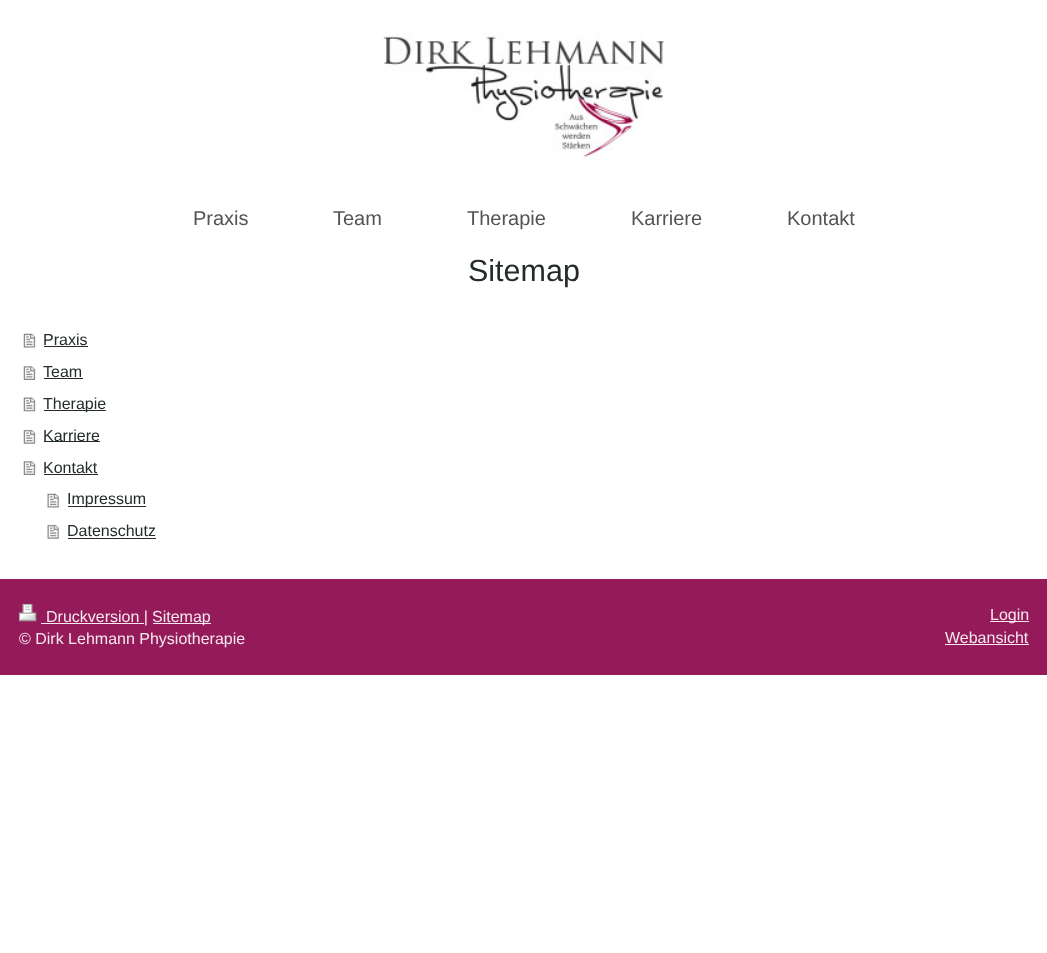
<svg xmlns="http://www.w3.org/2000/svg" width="1047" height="953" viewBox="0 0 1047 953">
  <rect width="100%" height="100%" fill="rgb(255,255,255)"/>
  <image x="383" y="33" width="282" height="128" href="pic1.png"/>
  <g font-family="Liberation Sans" font-size="20" fill="rgb(83,83,83)">
    <text x="193" y="225">Praxis</text>
    <text x="333" y="225">Team</text>
    <text x="467" y="225">Therapie</text>
    <text x="631" y="225">Karriere</text>
    <text x="787" y="225">Kontakt</text>
  </g>
  <text x="468" y="281" font-family="Liberation Sans" font-size="30.5" fill="rgb(36,43,43)">Sitemap</text>
  <image x="23" y="333" width="13" height="15" href="pic2.png"/>
  <text x="43" y="345" font-family="Liberation Sans" font-size="16" fill="rgb(36,43,43)">Praxis</text>
  <rect x="44" y="346" width="44" height="1" fill="rgb(36,43,43)"/>
  <image x="23" y="366" width="13" height="14" href="pic3.png"/>
  <text x="43" y="377" font-family="Liberation Sans" font-size="16" fill="rgb(36,43,43)">Team</text>
  <rect x="44" y="378" width="39" height="1" fill="rgb(36,43,43)"/>
  <image x="23" y="397" width="13" height="15" href="pic4.png"/>
  <rect x="44" y="410" width="62" height="1" fill="rgb(36,43,43)"/>
  <text x="43" y="409" font-family="Liberation Sans" font-size="16" fill="rgb(36,43,43)">Therapie</text>
  <image x="23" y="429" width="13" height="15" href="pic5.png"/>
  <rect x="44" y="441" width="56" height="1" fill="rgb(36,43,43)"/>
  <text x="43" y="441" font-family="Liberation Sans" font-size="16" fill="rgb(36,43,43)">Karriere</text>
  <image x="23" y="461" width="13" height="14" href="pic3.png"/>
  <text x="43" y="473" font-family="Liberation Sans" font-size="16" fill="rgb(36,43,43)">Kontakt</text>
  <rect x="44" y="474" width="54" height="1" fill="rgb(36,43,43)"/>
  <image x="47" y="493" width="12" height="15" href="pic6.png"/>
  <rect x="68" y="506" width="78" height="1" fill="rgb(36,43,43)"/>
  <text x="67" y="504" font-family="Liberation Sans" font-size="16" fill="rgb(36,43,43)">Impressum</text>
  <image x="47" y="524" width="12" height="15" href="pic7.png"/>
  <text x="67" y="536" font-family="Liberation Sans" font-size="16" fill="rgb(36,43,43)">Datenschutz</text>
  <rect x="68" y="538" width="88" height="1" fill="rgb(36,43,43)"/>
  <rect x="0" y="579" width="1047" height="96" fill="rgb(148,26,89)"/>
  <image x="18" y="603" width="19" height="19" href="pic8.png"/>
  <rect x="41" y="623" width="103" height="1" fill="rgb(244,232,238)"/>
  <text x="46" y="622" font-family="Liberation Sans" font-size="16" fill="rgb(244,232,238)">Druckversion |</text>
  <rect x="153" y="623" width="58" height="1" fill="rgb(244,232,238)"/>
  <g font-family="Liberation Sans" font-size="16" fill="rgb(244,232,238)">
    <text x="152" y="622">Sitemap</text>
    <text x="19" y="644">© Dirk Lehmann Physiotherapie</text>
  </g>
  <rect x="990" y="621" width="39" height="1" fill="rgb(244,232,238)"/>
  <g font-family="Liberation Sans" font-size="16" fill="rgb(244,232,238)">
    <text x="990" y="620">Login</text>
    <text x="945" y="643">Webansicht</text>
  </g>
  <rect x="945" y="644" width="84" height="1" fill="rgb(244,232,238)"/>
</svg>
